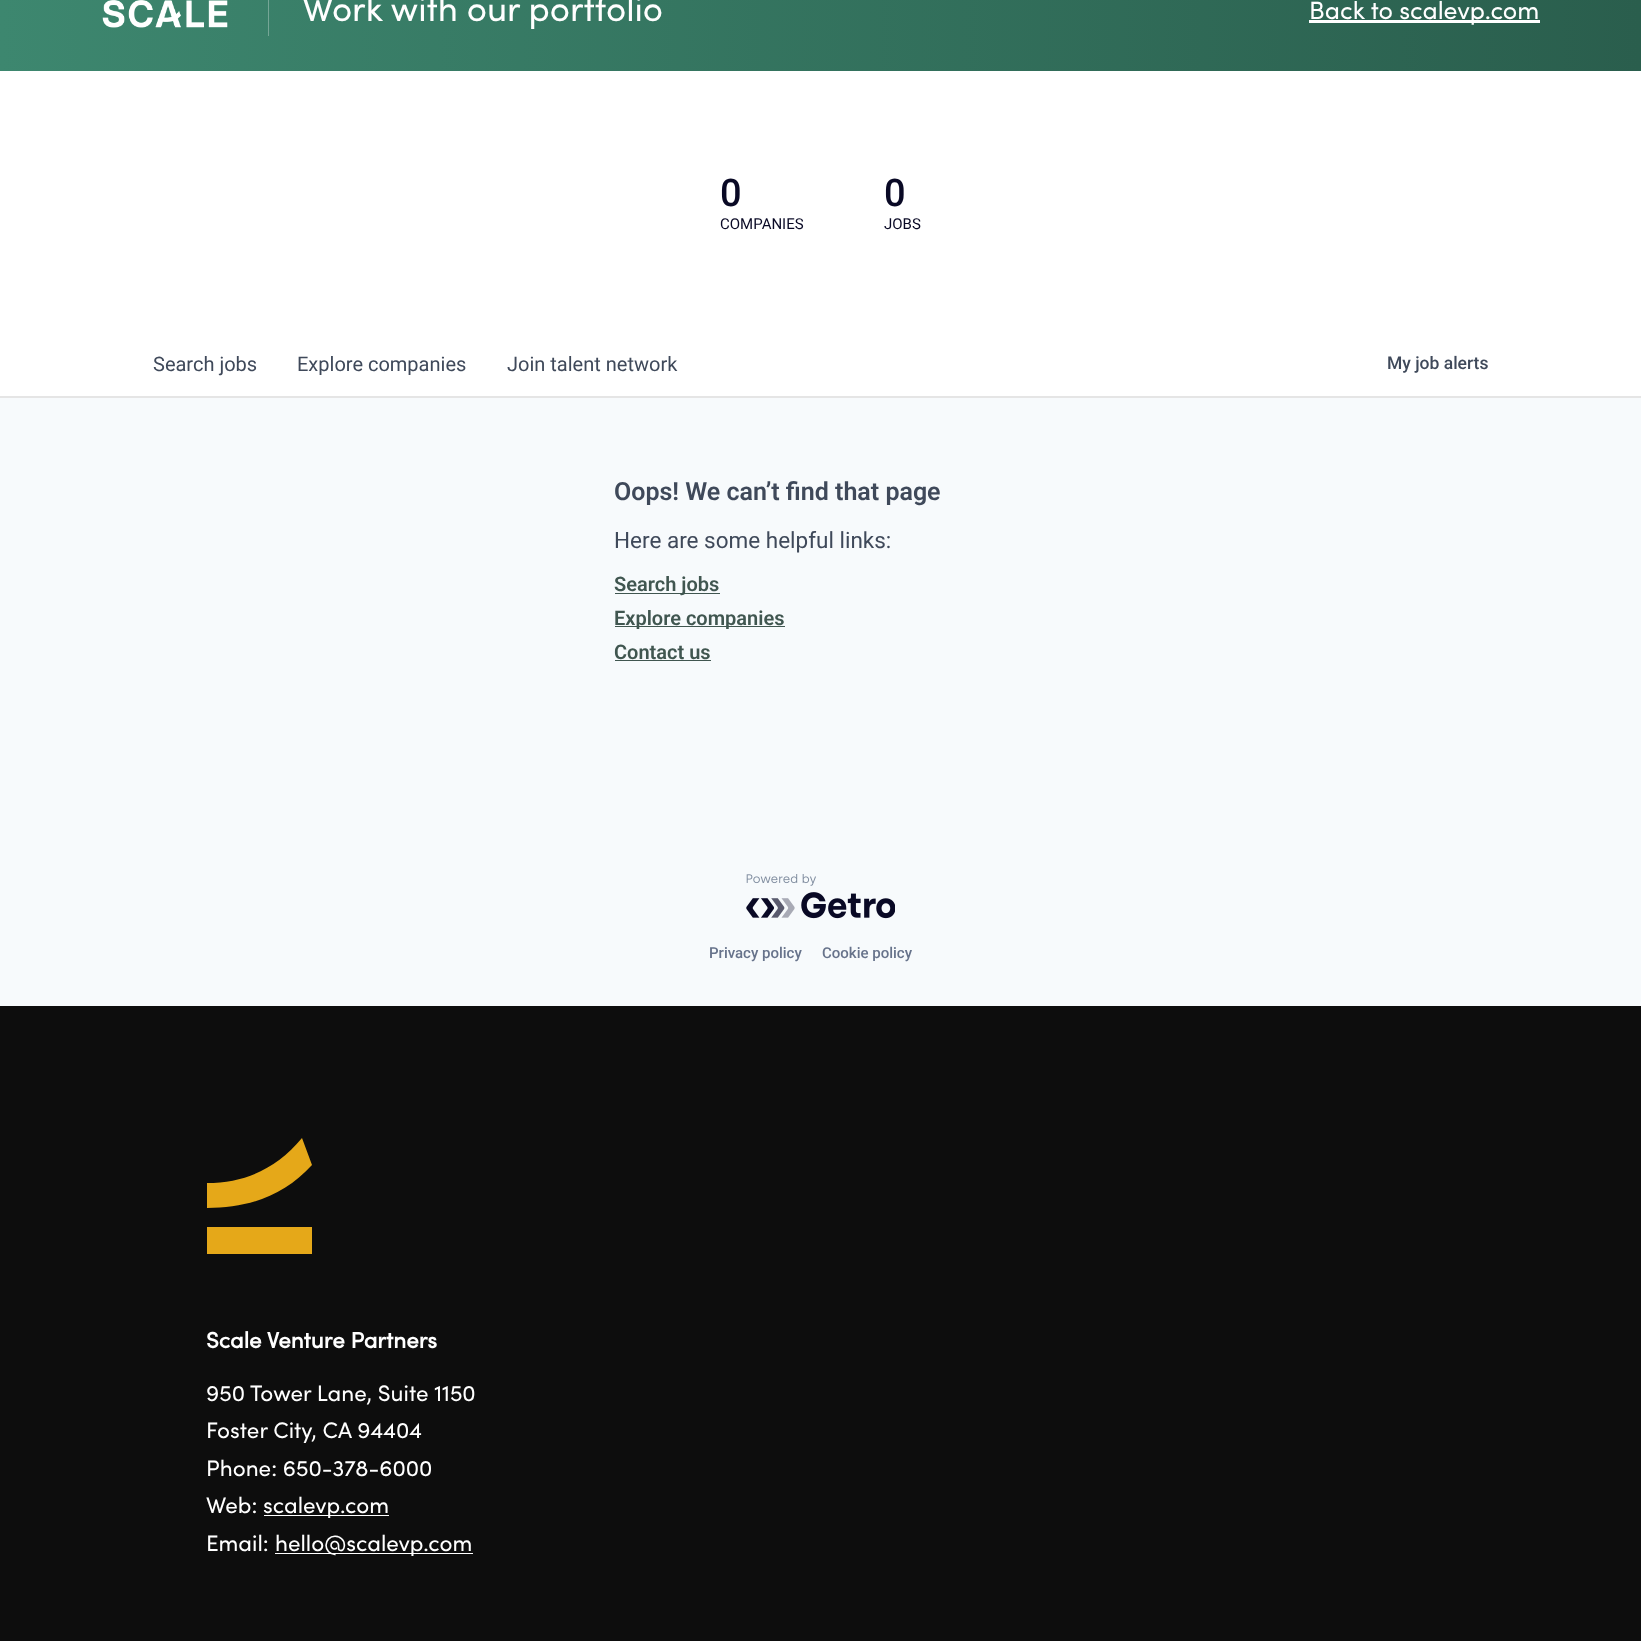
<svg xmlns="http://www.w3.org/2000/svg" width="1641" height="1641" viewBox="0 0 1641 1641">
  <defs>
    <linearGradient id="g1" gradientUnits="userSpaceOnUse" x1="0" y1="13" x2="1641" y2="13"><stop offset="0" stop-color="rgb(61,135,111)"/><stop offset="1" stop-color="rgb(42,94,77)"/></linearGradient>
  </defs>
  <rect width="100%" height="100%" fill="rgb(247,250,252)"/>
  <rect x="0" y="0" width="1641" height="71" fill="url(#g1)"/>
  <image x="102" y="0" width="126" height="28" href="pic1.png"/>
  <rect x="268" y="0" width="1" height="36" fill="rgb(117,166,150)"/>
  <text x="302" y="21" font-family="Sofia" font-size="35" fill="rgb(255,255,255)">Work with our portfolio</text>
  <rect x="1309" y="20" width="231" height="3" fill="rgb(255,255,255)"/>
  <text x="1309" y="19" font-family="Sofia" font-size="25" fill="rgb(255,255,255)">Back to scalevp.com</text>
  <rect x="0" y="71" width="1641" height="325" fill="rgb(255,255,255)"/>
  <text x="720" y="206" font-family="Roboto" font-size="38" font-weight="500" fill="rgb(9,9,37)">0</text>
  <text x="720" y="229" font-family="Roboto" font-size="15" fill="rgb(9,9,37)">COMPANIES</text>
  <text x="884" y="206" font-family="Roboto" font-size="38" font-weight="500" fill="rgb(9,9,37)">0</text>
  <text x="884" y="229" font-family="Roboto" font-size="15" fill="rgb(9,9,37)">JOBS</text>
  <rect x="0" y="396" width="1641" height="2" fill="rgb(229,229,229)"/>
  <g font-family="Roboto" font-size="20" fill="rgb(63,73,90)">
    <text x="153" y="371">Search jobs</text>
    <text x="297" y="371">Explore companies</text>
    <text x="507" y="371">Join talent network</text>
  </g>
  <text x="1387" y="369" font-family="Roboto" font-size="17.5" font-weight="500" fill="rgb(63,73,90)">My job alerts</text>
  <text x="614" y="500" font-family="Roboto" font-size="25" font-weight="600" fill="rgb(63,73,90)">Oops! We can’t find that page</text>
  <text x="614" y="548" font-family="Roboto" font-size="22.5" fill="rgb(63,73,90)">Here are some helpful links:</text>
  <rect x="615" y="593" width="105" height="1" fill="rgb(64,86,80)"/>
  <text x="614" y="591" font-family="Roboto" font-size="20" font-weight="600" fill="rgb(64,86,80)">Search jobs</text>
  <rect x="615" y="626" width="170" height="1" fill="rgb(64,86,80)"/>
  <g font-family="Roboto" font-size="20" font-weight="600" fill="rgb(64,86,80)">
    <text>
      <tspan x="614" y="625">Explore companies</tspan>
      <tspan x="614" y="659">Contact us</tspan>
    </text>
  </g>
  <rect x="615" y="660" width="96" height="1" fill="rgb(64,86,80)"/>
  <image x="746" y="874" width="149" height="45" href="pic2.png"/>
  <g font-family="Roboto" font-size="15" font-weight="500" fill="rgb(103,115,139)">
    <text x="709" y="958">Privacy policy</text>
    <text x="822" y="958">Cookie policy</text>
  </g>
  <rect x="0" y="1006" width="1641" height="635" fill="rgb(13,13,13)"/>
  <path d="M207 1183C246 1183 277 1168 302 1138L312 1165C284 1196 248 1208 207 1208Z" fill="rgb(229,168,25)"/>
  <rect x="207" y="1227" width="105" height="27" fill="rgb(229,168,25)"/>
  <text x="206" y="1348" font-family="Sofia" font-size="22.5" font-weight="bold" fill="rgb(255,255,255)">Scale Venture Partners</text>
  <g font-family="Sofia" font-size="22.5" fill="rgb(255,255,255)">
    <text>
      <tspan x="206" y="1401">950 Tower Lane, Suite 1150</tspan>
      <tspan x="206" y="1438">Foster City, CA 94404</tspan>
      <tspan x="206" y="1476">Phone: 650-378-6000</tspan>
      <tspan x="206" y="1513">Web:</tspan>
    </text>
  </g>
  <rect x="264" y="1515" width="125" height="1" fill="rgb(255,255,255)"/>
  <g font-family="Sofia" font-size="22.5" fill="rgb(255,255,255)">
    <text x="263" y="1513">scalevp.com</text>
    <text x="206" y="1551">Email:</text>
  </g>
  <rect x="275" y="1553" width="198" height="1" fill="rgb(255,255,255)"/>
  <text x="275" y="1551" font-family="Sofia" font-size="22.5" fill="rgb(255,255,255)">hello@scalevp.com</text>
</svg>
